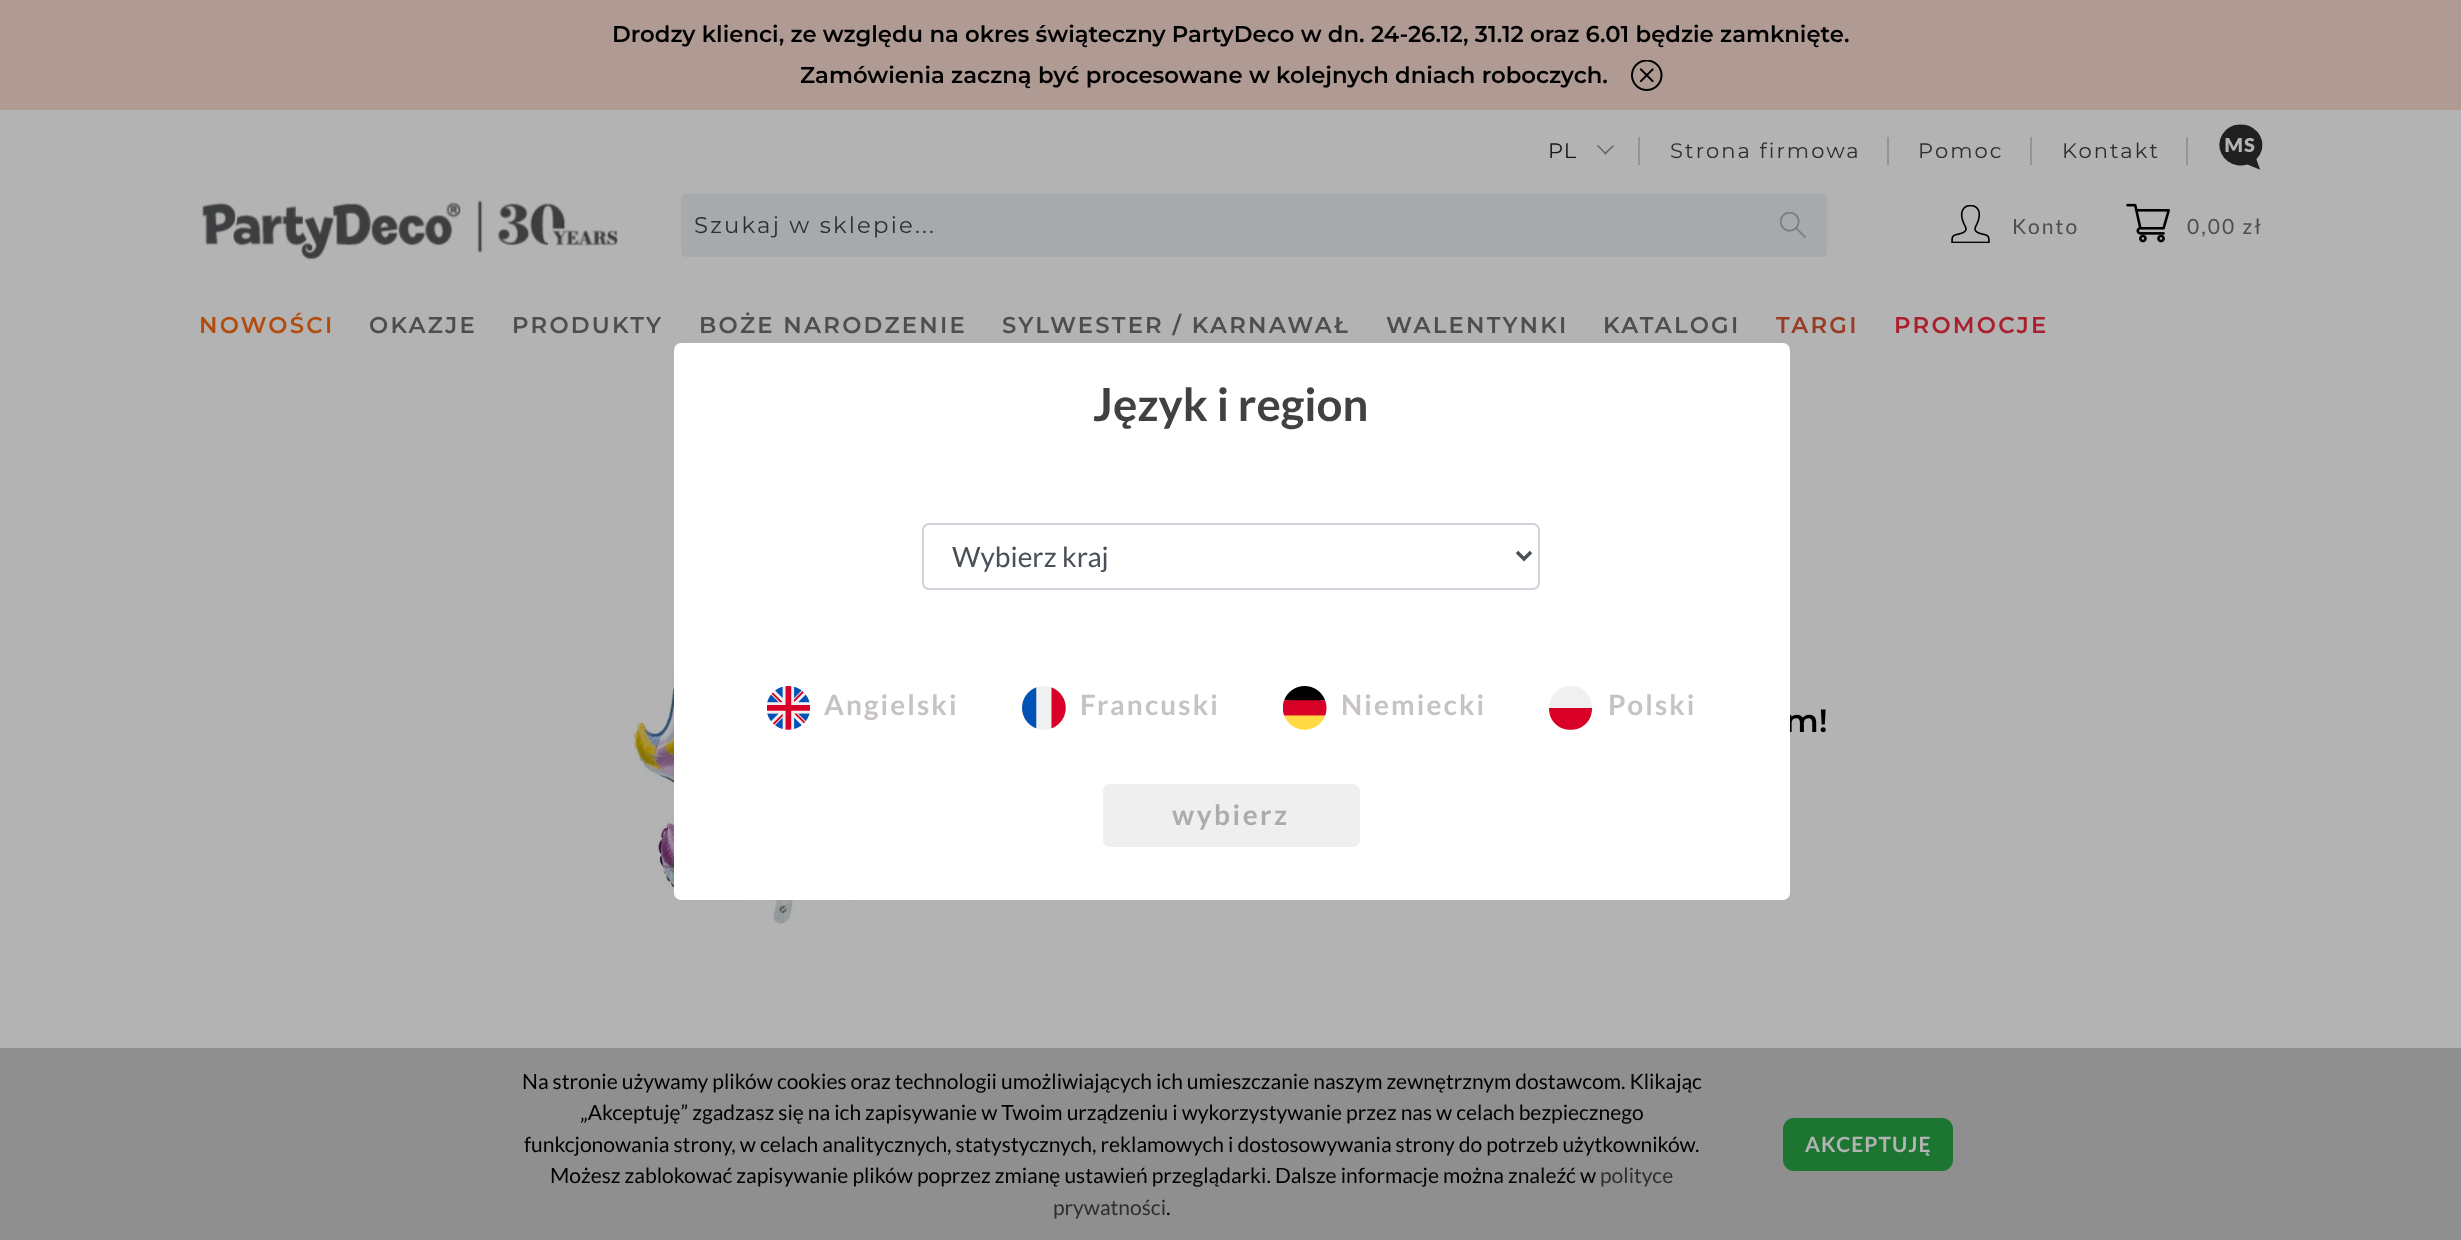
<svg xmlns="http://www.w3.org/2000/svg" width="2461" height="1240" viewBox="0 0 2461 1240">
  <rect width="100%" height="100%" fill="rgb(179,179,179)"/>
  <rect x="0" y="0" width="2461" height="110" fill="rgb(176,154,148)"/>
  <g font-family="Montserrat" font-size="22.75" font-weight="600" fill="rgb(0,0,0)">
    <text x="612" y="42">Drodzy klienci, ze względu na okres świąteczny PartyDeco w dn. 24-26.12, 31.12 oraz 6.01 będzie zamknięte.</text>
    <text x="800" y="83">Zamówienia zaczną być procesowane w kolejnych dniach roboczych.</text>
  </g>
  <image x="1631" y="60" width="32" height="31" href="pic1.png"/>
  <rect x="1638" y="137" width="2" height="28" fill="rgb(146,148,150)"/>
  <text x="1548" y="158" font-family="Montserrat" font-size="21" letter-spacing="1" fill="rgb(25,22,22)">PL</text>
  <path d="M1613 145L1614 146L1605.5 154.5L1604 153.5Z" fill="rgb(102,102,102)"/>
  <path d="M1598 145L1606.5 153.5L1605.5 154.5L1597 146Z" fill="rgb(102,102,102)"/>
  <rect x="1887" y="137" width="2" height="28" fill="rgb(146,148,150)"/>
  <text x="1670" y="158" font-family="Montserrat" font-size="21" letter-spacing="2.1" fill="rgb(46,46,46)">Strona firmowa</text>
  <rect x="2030" y="137" width="2" height="28" fill="rgb(146,148,150)"/>
  <text x="1918" y="158" font-family="Montserrat" font-size="21" letter-spacing="2.1" fill="rgb(46,46,46)">Pomoc</text>
  <rect x="2186" y="137" width="2" height="28" fill="rgb(146,148,150)"/>
  <text x="2062" y="158" font-family="Montserrat" font-size="21" letter-spacing="2.1" fill="rgb(46,46,46)">Kontakt</text>
  <image x="2219" y="124" width="44" height="46" href="pic2.png"/>
  <image x="202" y="200" width="416" height="60" href="pic3.png"/>
  <rect x="681" y="194" width="1146" height="63" rx="5" fill="rgb(167,170,172)"/>
  <image x="1780" y="212" width="26" height="26" href="pic4.png"/>
  <text x="694" y="233" font-family="Montserrat" font-size="22.75" letter-spacing="2.2" fill="rgb(46,46,46)">Szukaj w sklepie...</text>
  <image x="1951" y="205" width="39" height="38" href="pic5.png"/>
  <text x="2012" y="234" font-family="Lato" font-size="21" letter-spacing="2.1" fill="rgb(78,78,78)">Konto</text>
  <image x="2126" y="203" width="44" height="40" href="pic6.png"/>
  <text x="2187" y="234" font-family="Lato" font-size="21" letter-spacing="2.1" fill="rgb(78,78,78)">0,00 zł</text>
  <text x="199" y="333" font-family="Montserrat" font-size="22.75" font-weight="600" letter-spacing="2.25" fill="rgb(179,76,13)">NOWOŚCI</text>
  <g font-family="Montserrat" font-size="22.75" font-weight="600" letter-spacing="2.25" fill="rgb(78,78,78)">
    <text x="369" y="333">OKAZJE</text>
    <text x="512" y="333">PRODUKTY</text>
    <text x="699" y="333">BOŻE NARODZENIE</text>
    <text x="1002" y="333">SYLWESTER / KARNAWAŁ</text>
    <text x="1386" y="333">WALENTYNKI</text>
    <text x="1603" y="333">KATALOGI</text>
  </g>
  <text x="1776" y="333" font-family="Montserrat" font-size="22.75" font-weight="600" letter-spacing="2.25" fill="rgb(152,61,36)">TARGI</text>
  <text x="1894" y="333" font-family="Montserrat" font-size="22.75" font-weight="600" letter-spacing="2.25" fill="rgb(169,31,45)">PROMOCJE</text>
  <image x="633" y="500" width="320" height="425" href="pic10.png"/>
  <text x="1785" y="732" font-family="Montserrat" font-size="32" font-weight="600" fill="rgb(0,0,0)">m!</text>
  <rect x="674" y="343" width="1116" height="557" rx="7" fill="rgb(255,255,255)"/>
  <text x="1093" y="421" font-family="Lato" font-size="45.5" font-weight="bold" fill="rgb(65,65,65)">Język i region</text>
  <rect x="923" y="524" width="616" height="65" rx="6" fill="none" stroke="rgb(206,212,218)" stroke-width="2"/>
  <path d="M1517 552L1524 559L1531 552" fill="none" stroke="rgb(73,80,87)" stroke-width="3.5"/>
  <text x="952" y="567" font-family="Lato" font-size="28" fill="rgb(73,80,87)">Wybierz kraj</text>
  <image x="767" y="686" width="43" height="44" href="pic7.png"/>
  <text x="824" y="715" font-family="Lato" font-size="28" font-weight="bold" letter-spacing="2.1" fill="rgb(199,195,195)">Angielski</text>
  <image x="1022" y="686" width="44" height="44" href="pic8.png"/>
  <text x="1080" y="715" font-family="Lato" font-size="28" font-weight="bold" letter-spacing="2.1" fill="rgb(199,195,195)">Francuski</text>
  <image x="1283" y="686" width="44" height="44" href="pic9.png"/>
  <text x="1341" y="715" font-family="Lato" font-size="28" font-weight="bold" letter-spacing="2.1" fill="rgb(199,195,195)">Niemiecki</text>
  <path d="M1571 730C1599 730 1599 686 1571 686C1542 686 1542 730 1571 730Z" fill="rgb(240,240,240)"/>
  <text x="1608" y="715" font-family="Lato" font-size="28" font-weight="bold" letter-spacing="2.1" fill="rgb(199,195,195)">Polski</text>
  <path d="M1592 708C1592 737 1549 737 1549 708" fill="rgb(216,0,39)"/>
  <rect x="1103" y="784" width="257" height="63" rx="7" fill="rgb(239,239,239)"/>
  <text x="1172" y="825" font-family="Lato" font-size="28" font-weight="bold" letter-spacing="2.5" fill="rgb(172,172,172)">wybierz</text>
  <rect x="0" y="1048" width="2461" height="192" fill="rgb(143,143,143)"/>
  <g font-family="Lato" font-size="21" fill="rgb(0,0,0)">
    <text x="522" y="1089">Na stronie używamy plików cookies oraz technologii umożliwiających ich umieszczanie naszym zewnętrznym dostawcom. Klikając</text>
    <text x="580" y="1120">„Akceptuję” zgadzasz się na ich zapisywanie w Twoim urządzeniu i wykorzystywanie przez nas w celach bezpiecznego</text>
    <text x="524" y="1152">funkcjonowania strony, w celach analitycznych, statystycznych, reklamowych i dostosowywania strony do potrzeb użytkowników.</text>
    <text x="550" y="1183">Możesz zablokować zapisywanie plików poprzez zmianę ustawień przeglądarki. Dalsze informacje można znaleźć w</text>
  </g>
  <g font-family="Lato" font-size="21" fill="rgb(46,46,46)">
    <text x="1600" y="1183">polityce</text>
    <text x="1053" y="1215">prywatności</text>
  </g>
  <text x="1166" y="1215" font-family="Lato" font-size="21" fill="rgb(0,0,0)">.</text>
  <rect x="1783" y="1118" width="170" height="53" rx="11" fill="rgb(28,117,48)"/>
  <text x="1805" y="1152" font-family="Lato" font-size="21" font-weight="bold" letter-spacing="1" fill="rgb(179,179,179)">AKCEPTUJĘ</text>
</svg>
